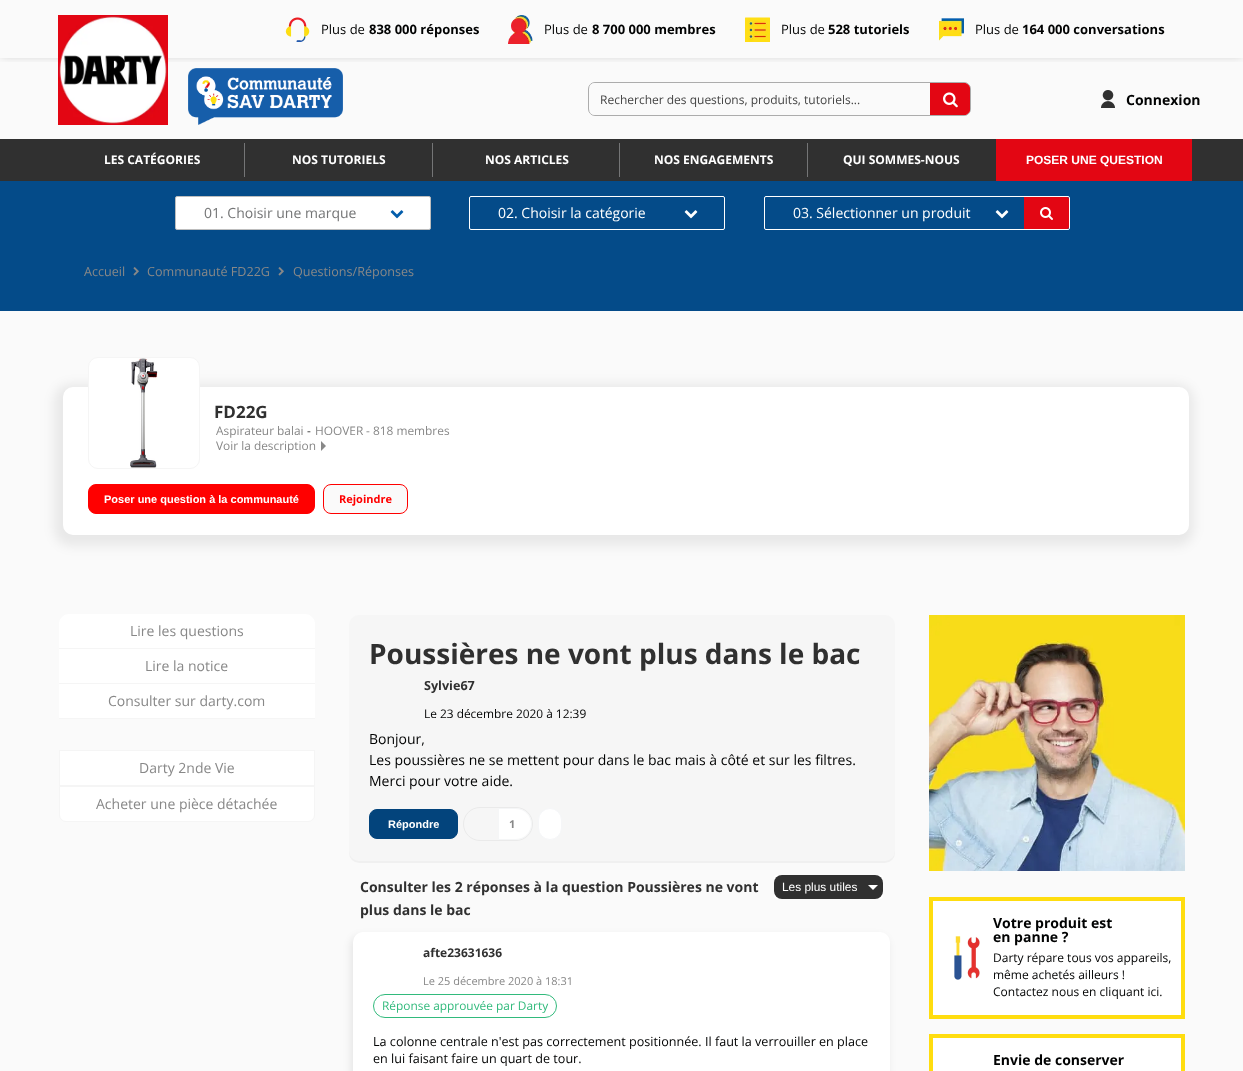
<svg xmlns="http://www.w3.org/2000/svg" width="1243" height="1071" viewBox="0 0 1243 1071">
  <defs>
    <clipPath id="clip1"><rect x="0" y="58" width="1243" height="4"/></clipPath>
    <clipPath id="clip2"><rect x="589" y="83" width="381" height="32" rx="6"/></clipPath>
  </defs>
  <rect width="100%" height="100%" fill="rgb(250,250,250)"/>
  <g clip-path="url(#clip1)">
    <rect x="1" y="0" width="1241" height="56" fill="rgba(0,0,0,0.2)" filter="blur(5px)"/>
  </g>
  <image x="285" y="17" width="25" height="25" href="pic1.png"/>
  <text x="321" y="34" font-family="Open Sans" font-size="13" fill="rgb(1,2,2)">Plus de</text>
  <text x="369" y="34" font-family="Open Sans" font-size="13" font-weight="bold" fill="rgb(1,2,2)">838 000 réponses</text>
  <image x="508" y="15" width="25" height="29" href="pic2.png"/>
  <text x="544" y="34" font-family="Open Sans" font-size="13" fill="rgb(1,2,2)">Plus de</text>
  <text x="592" y="34" font-family="Open Sans" font-size="13" font-weight="bold" fill="rgb(1,2,2)">8 700 000 membres</text>
  <image x="745" y="17" width="25" height="25" href="pic3.png"/>
  <text x="781" y="34" font-family="Open Sans" font-size="13" fill="rgb(1,2,2)">Plus de</text>
  <text x="828" y="34" font-family="Open Sans" font-size="13" font-weight="bold" fill="rgb(1,2,2)">528 tutoriels</text>
  <image x="939" y="18" width="25" height="23" href="pic4.png"/>
  <text x="975" y="34" font-family="Open Sans" font-size="13" fill="rgb(1,2,2)">Plus de</text>
  <text x="1022" y="34" font-family="Open Sans" font-size="13" font-weight="bold" fill="rgb(1,2,2)">164 000 conversations</text>
  <image x="58" y="15" width="110" height="110" href="pic5.png"/>
  <image x="188" y="68" width="155" height="57" href="pic6.png"/>
  <rect x="588.5" y="82.5" width="382" height="33" rx="6.5" fill="none" stroke="rgb(172,172,172)"/>
  <g clip-path="url(#clip2)">
    <path d="M592 83H929V115H592C591 115 590 114 590 113V85C590 84 591 83 592 83Z" fill="rgb(250,250,250)"/>
  </g>
  <text x="600" y="104" font-family="Open Sans" font-size="12" fill="rgb(68,68,68)">Rechercher des questions, produits, tutoriels...</text>
  <path d="M930 83H964C967.5 83 970 85.5 970 89V109C970 112.5 967.5 115 964 115H930Z" fill="rgb(227,6,19)"/>
  <path d="M930 83V115H964C965 115 966 115 967 114H931V84H967L964 83ZM970 89L969 86V112C970 111 970 110 970 109Z" fill="rgb(227,6,19)" fill-rule="evenodd"/>
  <image x="943" y="92" width="15" height="16" href="pic7.png"/>
  <image x="1101" y="90" width="14" height="18" href="pic8.png"/>
  <text x="1126" y="105" font-family="Open Sans" font-size="14" font-weight="bold" fill="rgb(1,2,2)">Connexion</text>
  <rect x="0" y="181" width="1243" height="130" fill="rgb(4,75,137)"/>
  <text x="84" y="276" font-family="Open Sans" font-size="12.6" fill="rgb(136,136,136)">Accueil</text>
  <image x="133" y="267" width="6" height="9" href="pic9.png"/>
  <text x="147" y="276" font-family="Open Sans" font-size="12.6" fill="rgb(136,136,136)">Communauté FD22G</text>
  <image x="278" y="267" width="6" height="9" href="pic9.png"/>
  <text x="293" y="276" font-family="Open Sans" font-size="12.6" fill="rgb(136,136,136)">Questions/Réponses</text>
  <rect x="0" y="139" width="1243" height="42" fill="rgb(48,48,48)"/>
  <text x="104" y="164" font-family="Open Sans" font-size="12" font-weight="bold" fill="rgb(255,255,255)">LES CATÉGORIES</text>
  <rect x="244" y="143" width="1" height="34" fill="rgb(116,117,118)"/>
  <text x="292" y="164" font-family="Open Sans" font-size="12" font-weight="bold" fill="rgb(255,255,255)">NOS TUTORIELS</text>
  <rect x="432" y="143" width="1" height="34" fill="rgb(116,117,118)"/>
  <text x="485" y="164" font-family="Open Sans" font-size="12" font-weight="bold" fill="rgb(255,255,255)">NOS ARTICLES</text>
  <rect x="619" y="143" width="1" height="34" fill="rgb(116,117,118)"/>
  <text x="654" y="164" font-family="Open Sans" font-size="12" font-weight="bold" fill="rgb(255,255,255)">NOS ENGAGEMENTS</text>
  <rect x="807" y="143" width="1" height="34" fill="rgb(116,117,118)"/>
  <text x="843" y="164" font-family="Open Sans" font-size="12" font-weight="bold" fill="rgb(255,255,255)">QUI SOMMES-NOUS</text>
  <rect x="996" y="139" width="196" height="42" fill="rgb(227,6,19)"/>
  <text x="1026" y="164" font-family="Liberation Sans" font-size="12" font-weight="bold" fill="rgb(255,255,255)">POSER UNE QUESTION</text>
  <rect x="175.5" y="196.5" width="255" height="33" rx="1.5" fill="rgb(255,255,255)" stroke="rgb(189,189,189)"/>
  <text x="204" y="218" font-family="Open Sans" font-size="14" fill="rgb(116,117,118)">01. Choisir une marque</text>
  <image x="390" y="210" width="14" height="9" href="pic10.png"/>
  <rect x="469.5" y="196.5" width="255" height="33" rx="1.5" fill="none" stroke="rgb(255,255,255)"/>
  <text x="498" y="218" font-family="Open Sans" font-size="14" fill="rgb(255,255,255)">02. Choisir la catégorie</text>
  <image x="684" y="210" width="14" height="9" href="pic11.png"/>
  <rect x="764.5" y="196.5" width="305" height="33" rx="1.5" fill="none" stroke="rgb(255,255,255)"/>
  <text x="793" y="218" font-family="Open Sans" font-size="14" fill="rgb(255,255,255)">03. Sélectionner un produit</text>
  <image x="995" y="210" width="14" height="9" href="pic11.png"/>
  <path d="M1024 197H1067C1068 197 1069 198 1069 199V227C1069 228 1068 229 1067 229H1024Z" fill="rgb(227,6,19)"/>
  <image x="1040" y="207" width="13" height="13" href="pic12.png"/>
  <rect x="54" y="384" width="1140" height="162" rx="17" fill="rgba(0,0,0,0.07)" filter="blur(5.5px)"/>
  <rect x="63" y="387" width="1126" height="148" rx="10" fill="rgb(255,255,255)"/>
  <rect x="88.5" y="357.5" width="111" height="111" rx="9.5" fill="rgb(255,255,255)" stroke="rgb(245,245,245)"/>
  <image x="130" y="358" width="28" height="110" href="pic13.png"/>
  <text x="214" y="418" font-family="Open Sans" font-size="17" font-weight="bold" fill="rgb(48,48,48)">FD22G</text>
  <text x="216" y="435" font-family="Open Sans" font-size="11.9" fill="rgb(136,136,136)">Aspirateur balai</text>
  <text x="307" y="435" font-family="Open Sans" font-size="11.9" fill="rgb(48,48,48)">-</text>
  <g font-family="Open Sans" font-size="11.9" fill="rgb(136,136,136)">
    <text x="315" y="435">HOOVER</text>
    <text x="366" y="435">- 818 membres</text>
    <text x="216" y="450">Voir la description</text>
  </g>
  <path d="M321 451V441L326 446Z" fill="rgb(136,136,136)"/>
  <rect x="88.5" y="484.5" width="226" height="29" rx="7.5" fill="rgb(255,0,0)" stroke="rgb(255,0,0)"/>
  <text x="104" y="503" font-family="Liberation Sans" font-size="11" font-weight="bold" fill="rgb(255,255,255)">Poser une question à la communauté</text>
  <rect x="323.5" y="484.5" width="84" height="29" rx="7.5" fill="rgb(250,250,250)" stroke="rgb(255,0,0)"/>
  <text x="339" y="503" font-family="Open Sans" font-size="11" font-weight="bold" fill="rgb(255,0,0)">Rejoindre</text>
  <path d="M69 614H305C310.5 614 315 618.5 315 624V719H59V624C59 618.5 63.5 614 69 614Z" fill="rgb(255,255,255)"/>
  <rect x="59" y="718" width="256" height="1" fill="rgb(245,245,245)"/>
  <rect x="59" y="648" width="256" height="1" fill="rgb(245,245,245)"/>
  <text x="130" y="636" font-family="Open Sans" font-size="14" fill="rgb(136,136,136)">Lire les questions</text>
  <rect x="59" y="683" width="256" height="1" fill="rgb(245,245,245)"/>
  <g font-family="Open Sans" font-size="14" fill="rgb(136,136,136)">
    <text x="145" y="671">Lire la notice</text>
    <text x="108" y="706">Consulter sur darty.com</text>
  </g>
  <rect x="59.5" y="750.5" width="255" height="35" fill="rgb(255,255,255)" stroke="rgb(245,245,245)"/>
  <text x="139" y="773" font-family="Open Sans" font-size="14" fill="rgb(136,136,136)">Darty 2nde Vie</text>
  <path d="M59.5 786.5H314.5V815C314.5 818.5 311.5 821.5 308 821.5H66C62.5 821.5 59.5 818.5 59.5 815Z" fill="rgb(255,255,255)" stroke="rgb(245,245,245)"/>
  <text x="96" y="809" font-family="Open Sans" font-size="14" fill="rgb(136,136,136)">Acheter une pièce détachée</text>
  <rect x="349" y="617" width="546" height="246" rx="10" fill="rgba(0,0,0,0.04)" filter="blur(0.5px)"/>
  <rect x="349" y="615" width="546" height="246" rx="10" fill="rgb(246,246,246)"/>
  <text x="369" y="664" font-family="Open Sans" font-size="28" font-weight="bold" fill="rgb(48,48,48)">Poussières ne vont plus dans le bac</text>
  <text x="424" y="690" font-family="Open Sans" font-size="12.6" font-weight="bold" fill="rgb(48,48,48)">Sylvie67</text>
  <text x="424" y="718" font-family="Open Sans" font-size="11.9" fill="rgb(1,2,2)">Le 23 décembre 2020 à 12:39</text>
  <g font-family="Open Sans" font-size="14" fill="rgb(1,2,2)">
    <text>
      <tspan x="369" y="744">Bonjour,</tspan>
      <tspan x="369" y="765">Les poussières ne se mettent pour dans le bac mais à côté et sur les filtres.</tspan>
      <tspan x="369" y="786">Merci pour votre aide.</tspan>
    </text>
  </g>
  <rect x="369.5" y="809.5" width="88" height="29" rx="7.5" fill="rgb(3,68,124)" stroke="rgb(3,68,124)"/>
  <text x="388" y="828" font-family="Liberation Sans" font-size="11" font-weight="bold" fill="rgb(255,255,255)">Répondre</text>
  <rect x="463.5" y="807.5" width="69" height="33" rx="16.5" fill="none" stroke="rgb(234,234,234)"/>
  <path d="M498.5 808.5H516C524.5 808.5 531.5 815.5 531.5 824C531.5 832.5 524.5 839.5 516 839.5H498.5Z" fill="rgb(255,255,255)" stroke="rgb(245,246,247)"/>
  <text x="509" y="828" font-family="Open Sans" font-size="11" font-weight="bold" fill="rgb(136,136,136)">1</text>
  <rect x="538.5" y="808.5" width="23" height="31" rx="11.5" fill="rgb(255,255,255)" stroke="rgb(245,246,248)"/>
  <g font-family="Open Sans" font-size="14" font-weight="bold" fill="rgb(48,48,48)">
    <text>
      <tspan x="360" y="892">Consulter les 2 réponses à la question Poussières ne vont</tspan>
      <tspan x="360" y="915">plus dans le bac</tspan>
    </text>
  </g>
  <rect x="774" y="875" width="109" height="24" rx="3" fill="rgb(255,255,255)"/>
  <rect x="774" y="875" width="109" height="24" rx="8" fill="rgb(48,48,48)"/>
  <text x="782" y="891" font-family="Liberation Sans" font-size="11.9" fill="rgb(255,255,255)">Les plus utiles</text>
  <path d="M868 885H878L873 890Z" fill="rgb(255,255,255)"/>
  <rect x="350" y="935" width="539" height="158" rx="11" fill="rgba(0,0,0,0.07)" filter="blur(3.5px)"/>
  <rect x="353" y="932" width="537" height="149" rx="10" fill="rgb(255,255,255)"/>
  <text x="423" y="957" font-family="Open Sans" font-size="12" font-weight="bold" fill="rgb(48,48,48)">afte23631636</text>
  <text x="423" y="985" font-family="Open Sans" font-size="11" fill="rgb(136,136,136)">Le 25 décembre 2020 à 18:31</text>
  <rect x="373.5" y="994.5" width="183" height="23" rx="11.5" fill="none" stroke="rgb(50,186,124)"/>
  <text x="382" y="1010" font-family="Open Sans" font-size="11.9" fill="rgb(50,186,124)">Réponse approuvée par Darty</text>
  <g font-family="Open Sans" font-size="12.6" fill="rgb(1,2,2)">
    <text>
      <tspan x="373" y="1046">La colonne centrale n'est pas correctement positionnée. Il faut la verrouiller en place</tspan>
      <tspan x="373" y="1063">en lui faisant faire un quart de tour.</tspan>
    </text>
  </g>
  <image x="929" y="615" width="256" height="256" href="pic14.png"/>
  <rect x="929" y="897" width="256" height="122" fill="rgb(255,221,15)"/>
  <rect x="933" y="901" width="248" height="114" fill="rgb(255,255,255)"/>
  <image x="954" y="936" width="26" height="44" href="pic15.png"/>
  <g font-family="Open Sans" font-size="14" font-weight="bold" fill="rgb(1,2,2)">
    <text>
      <tspan x="993" y="928">Votre produit est</tspan>
      <tspan x="993" y="942">en panne ?</tspan>
    </text>
  </g>
  <g font-family="Open Sans" font-size="12" fill="rgb(1,2,2)">
    <text>
      <tspan x="993" y="962">Darty répare tous vos appareils,</tspan>
      <tspan x="993" y="979">même achetés ailleurs !</tspan>
      <tspan x="993" y="996">Contactez nous en cliquant ici.</tspan>
    </text>
  </g>
  <rect x="929" y="1034" width="256" height="37" fill="rgb(255,221,15)"/>
  <rect x="933" y="1038" width="248" height="33" fill="rgb(255,255,255)"/>
  <text x="993" y="1065" font-family="Open Sans" font-size="14" font-weight="bold" fill="rgb(1,2,2)">Envie de conserver</text>
</svg>
